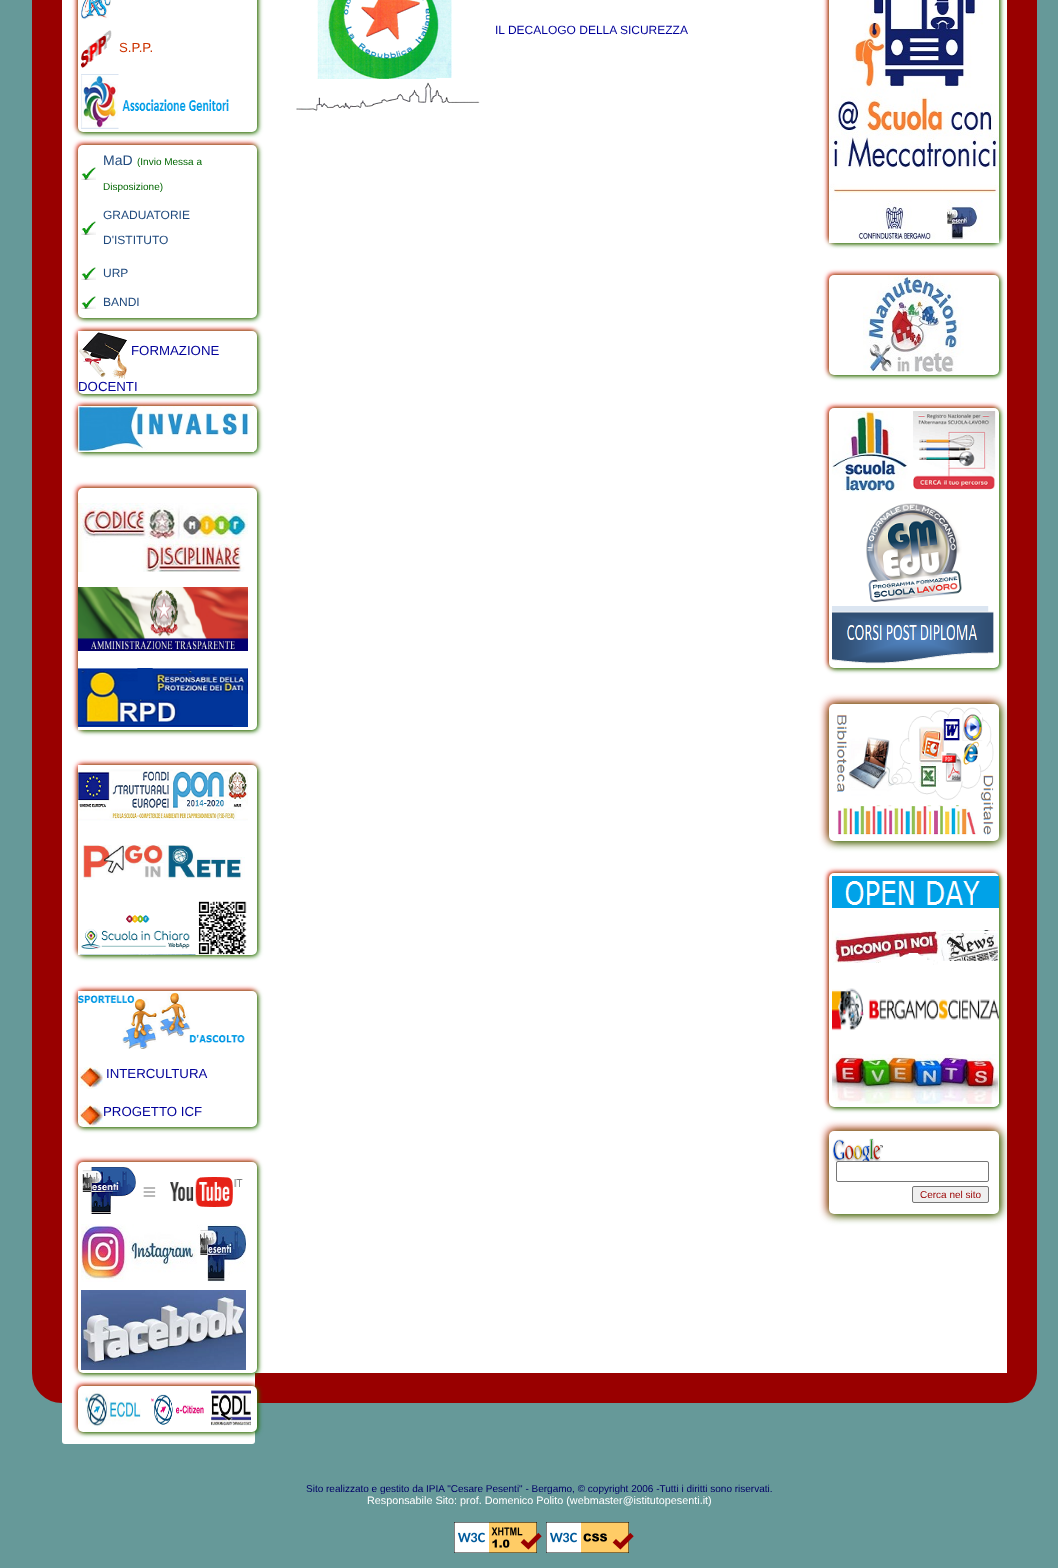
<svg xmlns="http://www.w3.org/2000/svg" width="1058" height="1568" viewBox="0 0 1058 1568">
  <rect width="100%" height="100%" fill="rgb(102,153,153)"/>
  <rect x="47" y="-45" width="975" height="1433" rx="15" fill="rgb(255,255,255)" stroke="rgb(153,0,0)" stroke-width="30"/>
  <image x="296" y="0" width="184" height="111" href="pic1.png"/>
  <text x="495" y="34" font-family="Liberation Sans" font-size="12" fill="rgb(0,0,153)">IL DECALOGO DELLA SICUREZZA</text>
  <rect x="62" y="-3" width="193" height="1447" rx="3" fill="rgb(255,255,255)"/>
  <rect x="77" y="-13" width="179" height="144" rx="5" fill="rgb(255,0,0)" filter="blur(2.5px)"/>
  <rect x="79" y="-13" width="179" height="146" rx="5" fill="rgb(0,128,0)" filter="blur(2.5px)"/>
  <rect x="78" y="-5" width="179" height="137" rx="5" fill="rgb(255,255,255)"/>
  <image x="81" y="0" width="30" height="20" href="pic2.png"/>
  <image x="81" y="30" width="31" height="38" href="pic3.png"/>
  <text x="119" y="52" font-family="Liberation Sans" font-size="13.25" fill="rgb(204,51,0)">S.P.P.</text>
  <image x="81" y="74" width="148" height="55" href="pic4.png"/>
  <rect x="77" y="144" width="179" height="173" rx="5" fill="rgb(255,0,0)" filter="blur(2.5px)"/>
  <rect x="79" y="146" width="179" height="173" rx="5" fill="rgb(0,128,0)" filter="blur(2.5px)"/>
  <rect x="78" y="145" width="179" height="173" rx="5" fill="rgb(255,255,255)"/>
  <image x="81" y="167" width="15" height="13" href="pic5.png"/>
  <text x="103" y="165" font-family="Liberation Sans" font-size="14" fill="rgb(31,73,125)">MaD</text>
  <g font-family="Liberation Sans" font-size="10" fill="rgb(0,102,0)">
    <text x="137" y="165">(Invio Messa a</text>
    <text x="103" y="190">Disposizione)</text>
  </g>
  <image x="81" y="221" width="15" height="14" href="pic6.png"/>
  <g font-family="Liberation Sans" font-size="12" fill="rgb(31,73,125)">
    <text x="103" y="219">GRADUATORIE</text>
    <text x="103" y="244">D'ISTITUTO</text>
  </g>
  <image x="81" y="267" width="15" height="13" href="pic5.png"/>
  <text x="103" y="277" font-family="Liberation Sans" font-size="12" fill="rgb(31,73,125)">URP</text>
  <image x="81" y="296" width="15" height="13" href="pic5.png"/>
  <text x="103" y="306" font-family="Liberation Sans" font-size="12" fill="rgb(31,73,125)">BANDI</text>
  <rect x="77" y="330" width="179" height="63" rx="5" fill="rgb(255,0,0)" filter="blur(2.5px)"/>
  <rect x="79" y="332" width="179" height="63" rx="5" fill="rgb(0,128,0)" filter="blur(2.5px)"/>
  <rect x="78" y="331" width="179" height="63" rx="5" fill="rgb(255,255,255)"/>
  <image x="78" y="331" width="49" height="48" href="pic7.png"/>
  <g font-family="Liberation Sans" font-size="13.25" fill="rgb(0,0,153)">
    <text x="131" y="355">FORMAZIONE</text>
    <text x="78" y="391">DOCENTI</text>
  </g>
  <rect x="77" y="405" width="179" height="46" rx="5" fill="rgb(255,0,0)" filter="blur(2.5px)"/>
  <rect x="79" y="407" width="179" height="46" rx="5" fill="rgb(0,128,0)" filter="blur(2.5px)"/>
  <rect x="78" y="406" width="179" height="46" rx="5" fill="rgb(255,255,255)"/>
  <image x="78" y="406" width="176" height="46" href="pic8.png"/>
  <rect x="77" y="487" width="179" height="242" rx="5" fill="rgb(255,0,0)" filter="blur(2.5px)"/>
  <rect x="79" y="489" width="179" height="242" rx="5" fill="rgb(0,128,0)" filter="blur(2.5px)"/>
  <rect x="78" y="488" width="179" height="242" rx="5" fill="rgb(255,255,255)"/>
  <image x="78" y="503" width="170" height="69" href="pic9.png"/>
  <image x="78" y="587" width="170" height="64" href="pic10.png"/>
  <image x="78" y="668" width="170" height="62" href="pic11.png"/>
  <rect x="77" y="764" width="179" height="190" rx="5" fill="rgb(255,0,0)" filter="blur(2.5px)"/>
  <rect x="79" y="766" width="179" height="190" rx="5" fill="rgb(0,128,0)" filter="blur(2.5px)"/>
  <rect x="78" y="765" width="179" height="190" rx="5" fill="rgb(255,255,255)"/>
  <image x="78" y="765" width="170" height="56" href="pic12.png"/>
  <image x="83" y="845" width="162" height="35" href="pic13.png"/>
  <image x="78" y="901" width="169" height="54" href="pic14.png"/>
  <rect x="77" y="990" width="179" height="136" rx="5" fill="rgb(255,0,0)" filter="blur(2.5px)"/>
  <rect x="79" y="992" width="179" height="136" rx="5" fill="rgb(0,128,0)" filter="blur(2.5px)"/>
  <rect x="78" y="991" width="179" height="136" rx="5" fill="rgb(255,255,255)"/>
  <image x="78" y="991" width="167" height="58" href="pic15.png"/>
  <image x="78" y="1067" width="25" height="22" href="pic16.png"/>
  <text x="106" y="1078" font-family="Liberation Sans" font-size="13.25" fill="rgb(0,0,153)">INTERCULTURA</text>
  <image x="78" y="1105" width="25" height="22" href="pic17.png"/>
  <text x="103" y="1116" font-family="Liberation Sans" font-size="13.25" fill="rgb(0,0,153)">PROGETTO ICF</text>
  <rect x="77" y="1161" width="179" height="211" rx="5" fill="rgb(255,0,0)" filter="blur(2.5px)"/>
  <rect x="79" y="1163" width="179" height="211" rx="5" fill="rgb(0,128,0)" filter="blur(2.5px)"/>
  <rect x="78" y="1162" width="179" height="211" rx="5" fill="rgb(255,255,255)"/>
  <image x="82" y="1167" width="161" height="47" href="pic18.png"/>
  <image x="81" y="1224" width="165" height="58" href="pic19.png"/>
  <image x="81" y="1290" width="165" height="80" href="pic20.png"/>
  <rect x="77" y="1385" width="179" height="46" rx="5" fill="rgb(255,0,0)" filter="blur(2.5px)"/>
  <rect x="79" y="1387" width="179" height="46" rx="5" fill="rgb(0,128,0)" filter="blur(2.5px)"/>
  <rect x="78" y="1386" width="179" height="46" rx="5" fill="rgb(255,255,255)"/>
  <image x="82" y="1390" width="59" height="37" href="pic21.png"/>
  <image x="151" y="1394" width="53" height="31" href="pic22.png"/>
  <image x="211" y="1390" width="40" height="36" href="pic23.png"/>
  <rect x="828" y="-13" width="170" height="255" rx="5" fill="rgb(255,0,0)" filter="blur(2.5px)"/>
  <rect x="830" y="-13" width="170" height="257" rx="5" fill="rgb(0,128,0)" filter="blur(2.5px)"/>
  <image x="829" y="0" width="170" height="243" href="pic24.png"/>
  <rect x="828" y="274" width="170" height="100" rx="5" fill="rgb(255,0,0)" filter="blur(2.5px)"/>
  <rect x="830" y="276" width="170" height="100" rx="5" fill="rgb(0,128,0)" filter="blur(2.5px)"/>
  <rect x="829" y="275" width="170" height="100" rx="5" fill="rgb(255,255,255)"/>
  <image x="863" y="275" width="101" height="99" href="pic25.png"/>
  <rect x="828" y="407" width="170" height="260" rx="5" fill="rgb(255,0,0)" filter="blur(2.5px)"/>
  <rect x="830" y="409" width="170" height="260" rx="5" fill="rgb(0,128,0)" filter="blur(2.5px)"/>
  <rect x="829" y="408" width="170" height="260" rx="5" fill="rgb(255,255,255)"/>
  <image x="832" y="411" width="76" height="81" href="pic26.png"/>
  <image x="913" y="411" width="83" height="79" href="pic27.png"/>
  <image x="866" y="503" width="96" height="99" href="pic28.png"/>
  <image x="832" y="606" width="162" height="58" href="pic29.png"/>
  <rect x="828" y="703" width="170" height="137" rx="5" fill="rgb(255,0,0)" filter="blur(5px)"/>
  <rect x="830" y="705" width="170" height="137" rx="5" fill="rgb(0,128,0)" filter="blur(5px)"/>
  <rect x="829" y="704" width="170" height="137" rx="5" fill="rgb(255,255,255)"/>
  <image x="837" y="707" width="157" height="128" href="pic30.png"/>
  <rect x="828" y="872" width="170" height="234" rx="5" fill="rgb(255,0,0)" filter="blur(2.5px)"/>
  <rect x="830" y="874" width="170" height="234" rx="5" fill="rgb(0,128,0)" filter="blur(2.5px)"/>
  <rect x="829" y="873" width="170" height="234" rx="5" fill="rgb(255,255,255)"/>
  <image x="832" y="876" width="167" height="32" href="pic31.png"/>
  <image x="832" y="930" width="166" height="35" href="pic32.png"/>
  <image x="832" y="988" width="167" height="43" href="pic33.png"/>
  <image x="832" y="1054" width="167" height="50" href="pic34.png"/>
  <rect x="828" y="1130" width="170" height="83" rx="5" fill="rgb(255,0,0)" filter="blur(5px)"/>
  <rect x="830" y="1132" width="170" height="83" rx="5" fill="rgb(0,128,0)" filter="blur(5px)"/>
  <rect x="829" y="1131" width="170" height="83" rx="5" fill="rgb(255,255,255)"/>
  <image x="832" y="1138" width="51" height="25" href="pic35.png"/>
  <rect x="836.5" y="1161.5" width="152" height="20" rx="1.5" fill="rgb(255,255,255)" stroke="rgb(118,118,118)"/>
  <rect x="912.5" y="1186.5" width="76" height="16" rx="1.5" fill="rgb(239,239,239)" stroke="rgb(118,118,118)"/>
  <text x="920" y="1198" font-family="Liberation Sans" font-size="10" fill="rgb(153,0,0)">Cerca nel sito</text>
  <text x="306" y="1492" font-family="Liberation Sans" font-size="10" fill="rgb(0,0,102)">Sito realizzato e gestito da IPIA "Cesare Pesenti" - Bergamo, © copyright 2006 -Tutti i diritti sono riservati.</text>
  <text x="367" y="1504" font-family="Liberation Sans" font-size="10.8" fill="rgb(255,255,255)">Responsabile Sito: prof. Domenico Polito (webmaster@istitutopesenti.it)</text>
  <image x="454" y="1522" width="88" height="31" href="pic36.png"/>
  <image x="546" y="1522" width="88" height="31" href="pic37.png"/>
</svg>
